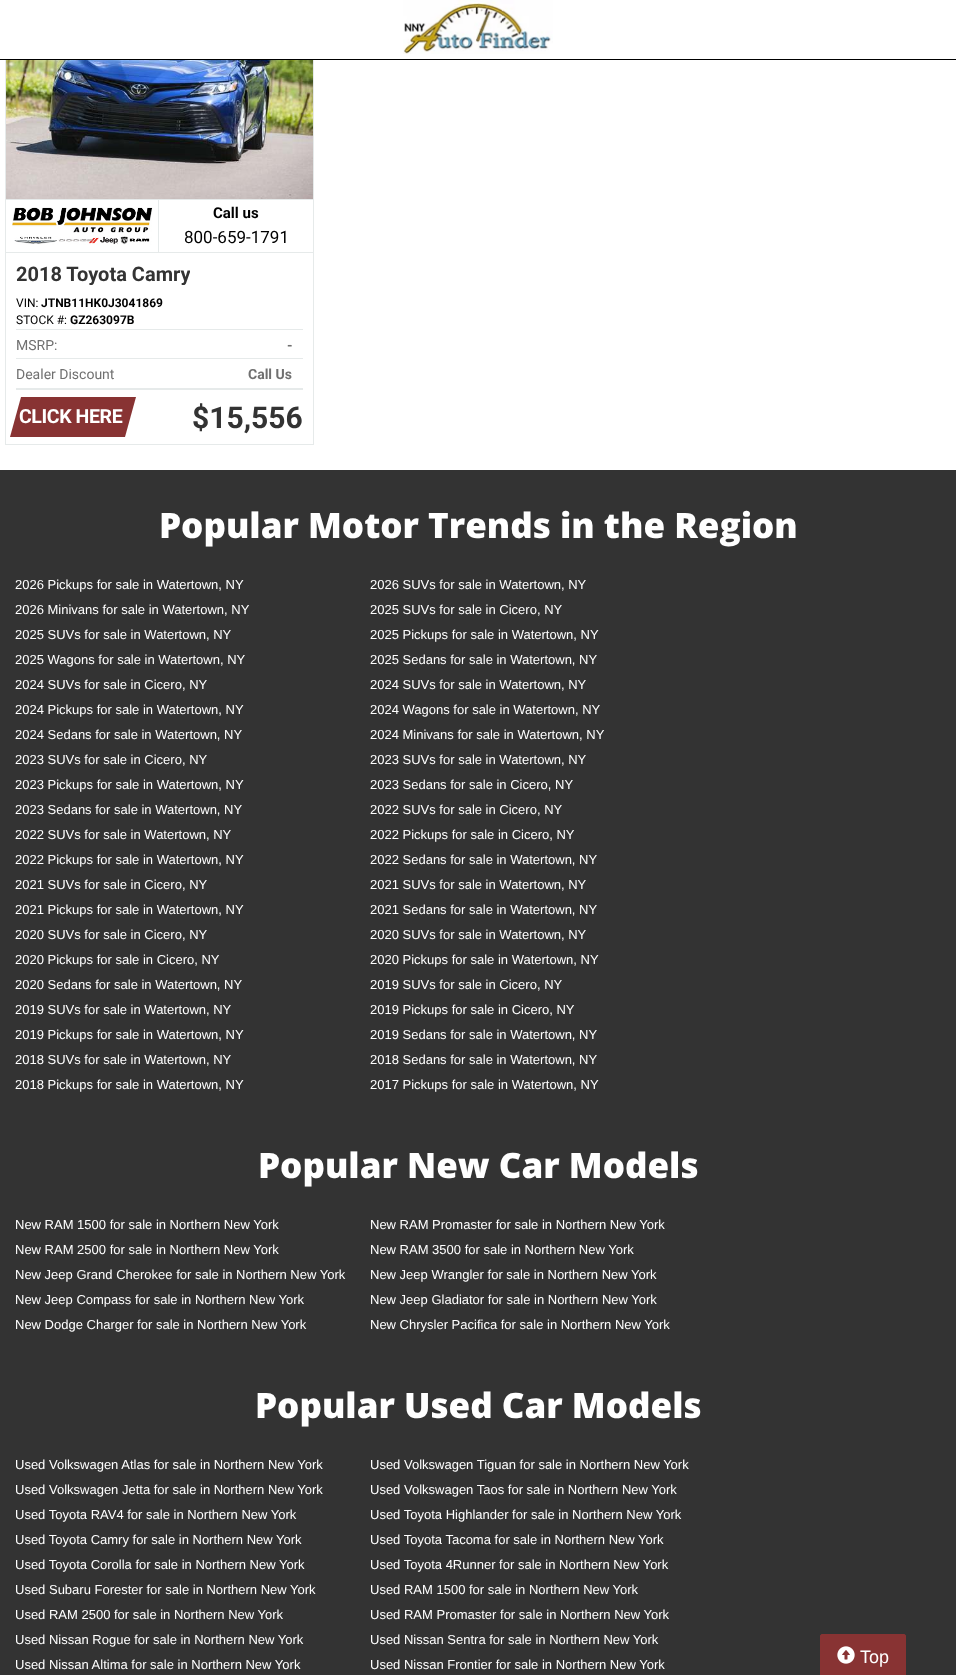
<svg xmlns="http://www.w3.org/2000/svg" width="956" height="1675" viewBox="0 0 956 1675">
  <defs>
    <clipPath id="clip1"><rect x="16" y="263" width="174" height="22"/></clipPath>
  </defs>
  <rect width="100%" height="100%" fill="rgb(255,255,255)"/>
  <rect x="5.5" y="-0.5" width="308" height="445" fill="none" stroke="rgb(230,234,234)"/>
  <rect x="5" y="0" width="309" height="59" fill="rgb(255,255,255)"/>
  <image x="403" y="0" width="150" height="54" href="pic1.png"/>
  <rect x="0" y="59" width="956" height="1" fill="rgb(0,0,0)"/>
  <image x="6" y="60" width="307" height="139" href="pic2.png"/>
  <rect x="6" y="199" width="307" height="1" fill="rgb(230,234,234)"/>
  <rect x="158" y="199" width="1" height="54" fill="rgb(230,234,234)"/>
  <rect x="6" y="252" width="307" height="1" fill="rgb(230,234,234)"/>
  <image x="12" y="207" width="141" height="38" href="pic3.png"/>
  <text x="213" y="218" font-family="Roboto" font-size="15" font-weight="bold" fill="rgb(0,0,0)">Call us</text>
  <text x="184" y="243" font-family="Roboto" font-size="17" fill="rgb(0,0,0)">800-659-1791</text>
  <g clip-path="url(#clip1)">
    <text x="16" y="281" font-family="Roboto" font-size="20" font-weight="bold" fill="rgb(51,51,51)">2018 Toyota Camry</text>
  </g>
  <text x="16" y="307" font-family="Roboto" font-size="12" fill="rgb(0,0,0)">VIN:</text>
  <text x="41" y="307" font-family="Roboto" font-size="12" font-weight="bold" fill="rgb(0,0,0)">JTNB11HK0J3041869</text>
  <text x="16" y="324" font-family="Roboto" font-size="12" fill="rgb(0,0,0)">STOCK #:</text>
  <text x="70" y="324" font-family="Roboto" font-size="12" font-weight="bold" fill="rgb(0,0,0)">GZ263097B</text>
  <rect x="16" y="329" width="287" height="1" fill="rgb(230,234,234)"/>
  <rect x="16" y="358" width="287" height="1" fill="rgb(230,234,234)"/>
  <text x="16" y="350" font-family="Roboto" font-size="14" fill="rgb(112,112,112)">MSRP:</text>
  <text x="287" y="350" font-family="Roboto" font-size="14" font-weight="bold" fill="rgb(112,112,112)">-</text>
  <rect x="16" y="388" width="287" height="2" fill="rgb(230,234,234)"/>
  <text x="16" y="379" font-family="Roboto" font-size="14" fill="rgb(112,112,112)">Dealer Discount</text>
  <text x="248" y="379" font-family="Roboto" font-size="14" font-weight="bold" fill="rgb(112,112,112)">Call Us</text>
  <path d="M21 397H136L125 437H10Z" fill="rgb(136,51,51)"/>
  <text x="19" y="423" font-family="Roboto" font-size="19.5" font-weight="bold" letter-spacing="-0.4" fill="rgb(255,255,255)">CLICK HERE</text>
  <text x="192" y="428" font-family="Roboto" font-size="30" font-weight="bold" fill="rgb(51,51,51)">$15,556</text>
  <rect x="0" y="470" width="956" height="1205" fill="rgb(51,51,51)"/>
  <rect x="820.5" y="1634.5" width="85" height="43" rx="1.5" fill="rgb(136,51,51)" stroke="rgb(136,51,51)"/>
  <image x="837" y="1646" width="18" height="18" href="pic4.png"/>
  <text x="860" y="1663" font-family="Liberation Sans" font-size="18" fill="rgb(255,255,255)">Top</text>
  <text x="159" y="538" font-family="Open Sans" font-size="35" font-weight="800" fill="rgb(255,255,255)">Popular Motor Trends in the Region</text>
  <g font-family="Liberation Sans" font-size="13" fill="rgb(255,255,255)">
    <text x="15" y="589">2026 Pickups for sale in Watertown, NY</text>
    <text x="370" y="589">2026 SUVs for sale in Watertown, NY</text>
    <text x="15" y="614">2026 Minivans for sale in Watertown, NY</text>
    <text x="370" y="614">2025 SUVs for sale in Cicero, NY</text>
    <text x="15" y="639">2025 SUVs for sale in Watertown, NY</text>
    <text x="370" y="639">2025 Pickups for sale in Watertown, NY</text>
    <text x="15" y="664">2025 Wagons for sale in Watertown, NY</text>
    <text x="370" y="664">2025 Sedans for sale in Watertown, NY</text>
    <text x="15" y="689">2024 SUVs for sale in Cicero, NY</text>
    <text x="370" y="689">2024 SUVs for sale in Watertown, NY</text>
    <text x="15" y="714">2024 Pickups for sale in Watertown, NY</text>
    <text x="370" y="714">2024 Wagons for sale in Watertown, NY</text>
    <text x="15" y="739">2024 Sedans for sale in Watertown, NY</text>
    <text x="370" y="739">2024 Minivans for sale in Watertown, NY</text>
    <text x="15" y="764">2023 SUVs for sale in Cicero, NY</text>
    <text x="370" y="764">2023 SUVs for sale in Watertown, NY</text>
    <text x="15" y="789">2023 Pickups for sale in Watertown, NY</text>
    <text x="370" y="789">2023 Sedans for sale in Cicero, NY</text>
    <text x="15" y="814">2023 Sedans for sale in Watertown, NY</text>
    <text x="370" y="814">2022 SUVs for sale in Cicero, NY</text>
    <text x="15" y="839">2022 SUVs for sale in Watertown, NY</text>
    <text x="370" y="839">2022 Pickups for sale in Cicero, NY</text>
    <text x="15" y="864">2022 Pickups for sale in Watertown, NY</text>
    <text x="370" y="864">2022 Sedans for sale in Watertown, NY</text>
    <text x="15" y="889">2021 SUVs for sale in Cicero, NY</text>
    <text x="370" y="889">2021 SUVs for sale in Watertown, NY</text>
    <text x="15" y="914">2021 Pickups for sale in Watertown, NY</text>
    <text x="370" y="914">2021 Sedans for sale in Watertown, NY</text>
    <text x="15" y="939">2020 SUVs for sale in Cicero, NY</text>
    <text x="370" y="939">2020 SUVs for sale in Watertown, NY</text>
    <text x="15" y="964">2020 Pickups for sale in Cicero, NY</text>
    <text x="370" y="964">2020 Pickups for sale in Watertown, NY</text>
    <text x="15" y="989">2020 Sedans for sale in Watertown, NY</text>
    <text x="370" y="989">2019 SUVs for sale in Cicero, NY</text>
    <text x="15" y="1014">2019 SUVs for sale in Watertown, NY</text>
    <text x="370" y="1014">2019 Pickups for sale in Cicero, NY</text>
    <text x="15" y="1039">2019 Pickups for sale in Watertown, NY</text>
    <text x="370" y="1039">2019 Sedans for sale in Watertown, NY</text>
    <text x="15" y="1064">2018 SUVs for sale in Watertown, NY</text>
    <text x="370" y="1064">2018 Sedans for sale in Watertown, NY</text>
    <text x="15" y="1089">2018 Pickups for sale in Watertown, NY</text>
    <text x="370" y="1089">2017 Pickups for sale in Watertown, NY</text>
  </g>
  <text x="258" y="1178" font-family="Open Sans" font-size="35" font-weight="800" fill="rgb(255,255,255)">Popular New Car Models</text>
  <g font-family="Liberation Sans" font-size="13" fill="rgb(255,255,255)">
    <text x="15" y="1229">New RAM 1500 for sale in Northern New York</text>
    <text x="370" y="1229">New RAM Promaster for sale in Northern New York</text>
    <text x="15" y="1254">New RAM 2500 for sale in Northern New York</text>
    <text x="370" y="1254">New RAM 3500 for sale in Northern New York</text>
    <text x="15" y="1279">New Jeep Grand Cherokee for sale in Northern New York</text>
    <text x="370" y="1279">New Jeep Wrangler for sale in Northern New York</text>
    <text x="15" y="1304">New Jeep Compass for sale in Northern New York</text>
    <text x="370" y="1304">New Jeep Gladiator for sale in Northern New York</text>
    <text x="15" y="1329">New Dodge Charger for sale in Northern New York</text>
    <text x="370" y="1329">New Chrysler Pacifica for sale in Northern New York</text>
  </g>
  <text x="255" y="1418" font-family="Open Sans" font-size="35" font-weight="800" fill="rgb(255,255,255)">Popular Used Car Models</text>
  <g font-family="Liberation Sans" font-size="13" fill="rgb(255,255,255)">
    <text x="15" y="1469">Used Volkswagen Atlas for sale in Northern New York</text>
    <text x="370" y="1469">Used Volkswagen Tiguan for sale in Northern New York</text>
    <text x="15" y="1494">Used Volkswagen Jetta for sale in Northern New York</text>
    <text x="370" y="1494">Used Volkswagen Taos for sale in Northern New York</text>
    <text x="15" y="1519">Used Toyota RAV4 for sale in Northern New York</text>
    <text x="370" y="1519">Used Toyota Highlander for sale in Northern New York</text>
    <text x="15" y="1544">Used Toyota Camry for sale in Northern New York</text>
    <text x="370" y="1544">Used Toyota Tacoma for sale in Northern New York</text>
    <text x="15" y="1569">Used Toyota Corolla for sale in Northern New York</text>
    <text x="370" y="1569">Used Toyota 4Runner for sale in Northern New York</text>
    <text x="15" y="1594">Used Subaru Forester for sale in Northern New York</text>
    <text x="370" y="1594">Used RAM 1500 for sale in Northern New York</text>
    <text x="15" y="1619">Used RAM 2500 for sale in Northern New York</text>
    <text x="370" y="1619">Used RAM Promaster for sale in Northern New York</text>
    <text x="15" y="1644">Used Nissan Rogue for sale in Northern New York</text>
    <text x="370" y="1644">Used Nissan Sentra for sale in Northern New York</text>
    <text x="15" y="1669">Used Nissan Altima for sale in Northern New York</text>
    <text x="370" y="1669">Used Nissan Frontier for sale in Northern New York</text>
  </g>
</svg>
